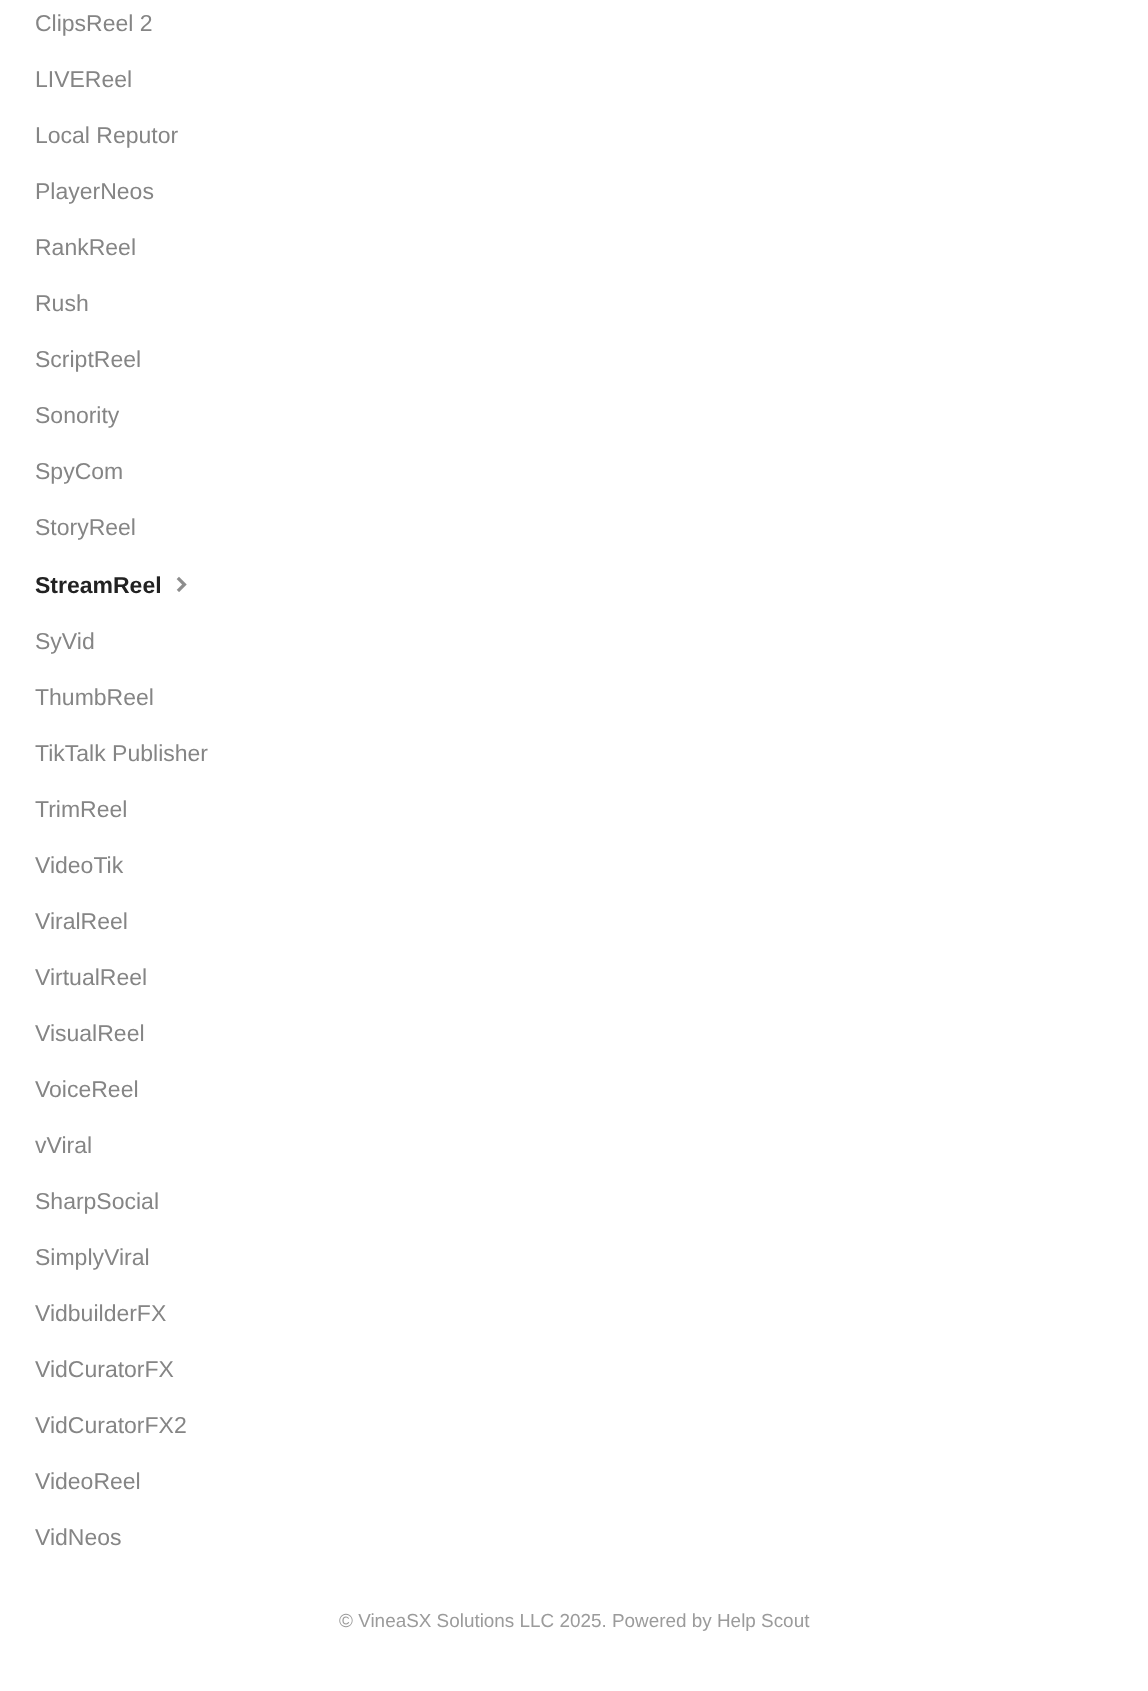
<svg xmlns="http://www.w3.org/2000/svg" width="1148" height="1691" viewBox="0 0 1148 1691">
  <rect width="100%" height="100%" fill="rgb(255,255,255)"/>
  <g font-family="Liberation Sans" font-size="23" fill="rgb(133,133,133)">
    <text x="35" y="31">ClipsReel 2</text>
    <text x="35" y="87">LIVEReel</text>
    <text x="35" y="143">Local Reputor</text>
    <text x="35" y="199">PlayerNeos</text>
    <text x="35" y="255">RankReel</text>
    <text x="35" y="311">Rush</text>
    <text x="35" y="367">ScriptReel</text>
    <text x="35" y="423">Sonority</text>
    <text x="35" y="479">SpyCom</text>
    <text x="35" y="535">StoryReel</text>
  </g>
  <text x="35" y="593" font-family="Liberation Sans" font-size="23" font-weight="bold" fill="rgb(34,34,34)">StreamReel</text>
  <image x="176" y="576" width="11" height="16" href="pic1.png"/>
  <g font-family="Liberation Sans" font-size="23" fill="rgb(133,133,133)">
    <text x="35" y="649">SyVid</text>
    <text x="35" y="705">ThumbReel</text>
    <text x="35" y="761">TikTalk Publisher</text>
    <text x="35" y="817">TrimReel</text>
    <text x="35" y="873">VideoTik</text>
    <text x="35" y="929">ViralReel</text>
    <text x="35" y="985">VirtualReel</text>
    <text x="35" y="1041">VisualReel</text>
    <text x="35" y="1097">VoiceReel</text>
    <text x="35" y="1153">vViral</text>
    <text x="35" y="1209">SharpSocial</text>
    <text x="35" y="1265">SimplyViral</text>
    <text x="35" y="1321">VidbuilderFX</text>
    <text x="35" y="1377">VidCuratorFX</text>
    <text x="35" y="1433">VidCuratorFX2</text>
    <text x="35" y="1489">VideoReel</text>
    <text x="35" y="1545">VidNeos</text>
  </g>
  <text x="339" y="1627" font-family="Liberation Sans" font-size="18.9" fill="rgb(155,155,155)">© VineaSX Solutions LLC 2025. Powered by Help Scout</text>
</svg>
